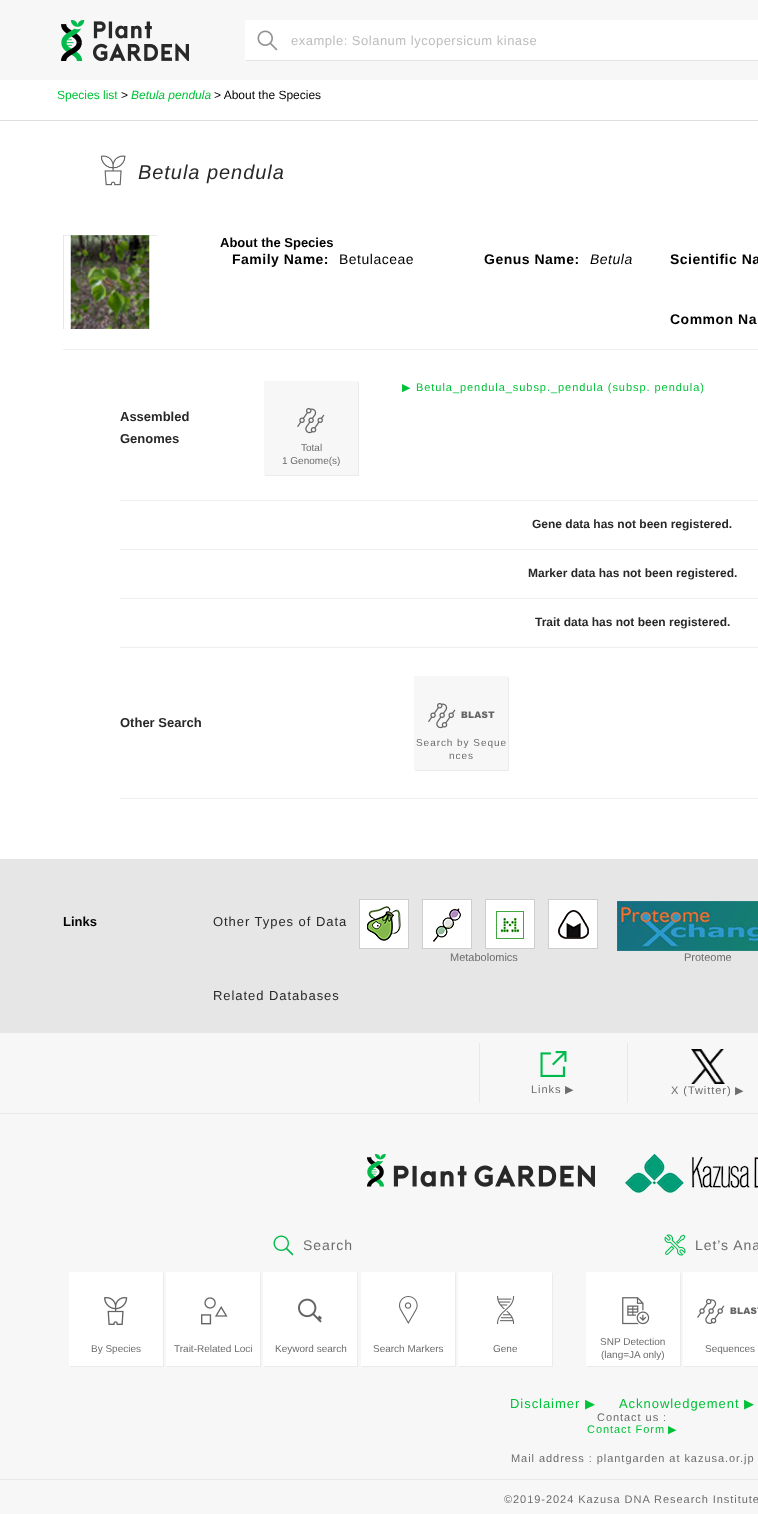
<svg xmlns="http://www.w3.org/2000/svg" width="758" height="1514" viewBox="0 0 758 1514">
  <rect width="100%" height="100%" fill="rgb(255,255,255)"/>
  <rect x="0" y="0" width="758" height="80" fill="rgb(247,247,247)"/>
  <image x="61" y="20" width="128" height="41" href="pic1.png"/>
  <rect x="245" y="20" width="513" height="40" fill="rgb(255,255,255)"/>
  <image x="257" y="30" width="21" height="21" href="pic2.png"/>
  <path d="M246 60V61H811V21H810V60Z" fill="rgb(227,227,227)"/>
  <text x="291" y="45" font-family="Liberation Sans" font-size="13" letter-spacing="0.5" fill="rgb(189,189,189)">example: Solanum lycopersicum kinase</text>
  <rect x="0" y="120" width="758" height="1" fill="rgb(221,221,218)"/>
  <text x="57" y="99" font-family="Liberation Sans" font-size="12" fill="rgb(0,194,56)">Species list</text>
  <text x="121" y="99" font-family="Liberation Sans" font-size="12" fill="rgb(0,0,0)">&gt;</text>
  <text x="131" y="99" font-family="Liberation Sans" font-size="12" font-style="italic" fill="rgb(0,194,56)">Betula pendula</text>
  <text x="214" y="99" font-family="Liberation Sans" font-size="12" fill="rgb(0,0,0)">&gt; About the Species</text>
  <image x="101" y="155" width="25" height="31" href="pic3.png"/>
  <text x="138" y="179" font-family="Liberation Sans" font-size="20" font-style="italic" letter-spacing="0.95" fill="rgb(40,40,40)">Betula pendula</text>
  <image x="63" y="235" width="94" height="94" href="pic4.png"/>
  <text x="220" y="247" font-family="Liberation Sans" font-size="13" font-weight="bold" fill="rgb(0,0,0)">About the Species</text>
  <text x="232" y="264" font-family="Liberation Sans" font-size="14" font-weight="bold" letter-spacing="0.5" fill="rgb(0,0,0)">Family Name:</text>
  <text x="339" y="264" font-family="Liberation Sans" font-size="14" letter-spacing="0.5" fill="rgb(0,0,0)">Betulaceae</text>
  <text x="484" y="264" font-family="Liberation Sans" font-size="14" font-weight="bold" letter-spacing="0.5" fill="rgb(0,0,0)">Genus Name:</text>
  <text x="590" y="264" font-family="Liberation Sans" font-size="14" font-style="italic" letter-spacing="0.5" fill="rgb(0,0,0)">Betula</text>
  <g font-family="Liberation Sans" font-size="14" font-weight="bold" letter-spacing="0.5" fill="rgb(0,0,0)">
    <text x="670" y="264">Scientific Na</text>
    <text x="670" y="324">Common Na</text>
  </g>
  <rect x="63" y="349" width="695" height="1" fill="rgb(238,238,238)"/>
  <rect x="120" y="500" width="638" height="1" fill="rgb(238,238,238)"/>
  <text x="402" y="391" font-family="DejaVu Sans" font-size="11" letter-spacing="0.95" fill="rgb(0,194,56)">▶︎</text>
  <text x="416" y="391" font-family="Liberation Sans" font-size="11" letter-spacing="0.95" fill="rgb(0,194,56)">Betula_pendula_subsp._pendula (subsp. pendula)</text>
  <g font-family="Liberation Sans" font-size="13" font-weight="bold" fill="rgb(40,40,40)">
    <text>
      <tspan x="120" y="421">Assembled</tspan>
      <tspan x="120" y="443">Genomes</tspan>
    </text>
  </g>
  <path d="M265 475V476H359V382H358V475Z" fill="rgb(235,235,235)"/>
  <rect x="264" y="381" width="94" height="94" fill="rgb(247,247,247)"/>
  <image x="297" y="408" width="28" height="26" href="pic5.png"/>
  <g font-family="Liberation Sans" font-size="10" fill="rgb(108,108,108)">
    <text x="301" y="451">Total</text>
    <text x="282" y="464">1 Genome(s)</text>
  </g>
  <rect x="120" y="549" width="638" height="1" fill="rgb(238,238,238)"/>
  <text x="532" y="528" font-family="Liberation Sans" font-size="12" font-weight="bold" fill="rgb(40,40,40)">Gene data has not been registered.</text>
  <rect x="120" y="598" width="638" height="1" fill="rgb(238,238,238)"/>
  <text x="528" y="577" font-family="Liberation Sans" font-size="12" font-weight="bold" fill="rgb(40,40,40)">Marker data has not been registered.</text>
  <rect x="120" y="647" width="638" height="1" fill="rgb(238,238,238)"/>
  <text x="535" y="626" font-family="Liberation Sans" font-size="12" font-weight="bold" fill="rgb(40,40,40)">Trait data has not been registered.</text>
  <rect x="120" y="798" width="638" height="1" fill="rgb(238,238,238)"/>
  <text x="120" y="727" font-family="Liberation Sans" font-size="13" font-weight="bold" fill="rgb(40,40,40)">Other Search</text>
  <path d="M415 770V771H509V677H508V770Z" fill="rgb(235,235,235)"/>
  <rect x="414" y="676" width="94" height="94" fill="rgb(247,247,247)"/>
  <image x="428" y="703" width="67" height="26" href="pic6.png"/>
  <g font-family="Liberation Sans" font-size="10" letter-spacing="0.95" fill="rgb(108,108,108)">
    <text x="416" y="746">Search by Seque</text>
    <text x="449" y="759">nces</text>
  </g>
  <rect x="0" y="859" width="758" height="174" fill="rgb(230,230,230)"/>
  <text x="63" y="926" font-family="Liberation Sans" font-size="13" font-weight="bold" fill="rgb(0,0,0)">Links</text>
  <text x="213" y="926" font-family="Liberation Sans" font-size="13" letter-spacing="0.95" fill="rgb(40,40,40)">Other Types of Data</text>
  <image x="359" y="899" width="50" height="50" href="pic7.png"/>
  <image x="422" y="899" width="50" height="50" href="pic8.png"/>
  <image x="485" y="899" width="50" height="50" href="pic9.png"/>
  <image x="548" y="899" width="50" height="50" href="pic10.png"/>
  <text x="450" y="961" font-family="Liberation Sans" font-size="11" fill="rgb(108,108,108)">Metabolomics</text>
  <image x="617" y="901" width="141" height="50" href="pic11.png"/>
  <text x="684" y="961" font-family="Liberation Sans" font-size="11" fill="rgb(108,108,108)">Proteome</text>
  <text x="213" y="1000" font-family="Liberation Sans" font-size="13" letter-spacing="0.95" fill="rgb(40,40,40)">Related Databases</text>
  <rect x="0" y="1033" width="758" height="481" fill="rgb(247,247,247)"/>
  <rect x="0" y="1113" width="758" height="1" fill="rgb(233,233,232)"/>
  <rect x="479" y="1043" width="1" height="60" fill="rgb(233,233,232)"/>
  <image x="540" y="1051" width="27" height="26" href="pic12.png"/>
  <text x="531" y="1093" font-family="Liberation Sans" font-size="11" letter-spacing="0.95" fill="rgb(108,108,108)">Links</text>
  <text x="565" y="1093" font-family="DejaVu Sans" font-size="11" letter-spacing="0.95" fill="rgb(108,108,108)">▶︎</text>
  <rect x="627" y="1043" width="1" height="60" fill="rgb(233,233,232)"/>
  <image x="691" y="1049" width="34" height="35" href="pic13.png"/>
  <text x="671" y="1094" font-family="Liberation Sans" font-size="11" letter-spacing="0.95" fill="rgb(108,108,108)">X (Twitter)</text>
  <text x="735" y="1094" font-family="DejaVu Sans" font-size="11" letter-spacing="0.95" fill="rgb(108,108,108)">▶︎</text>
  <image x="367" y="1154" width="228" height="33" href="pic14.png"/>
  <image x="624" y="1153" width="134" height="40" href="pic15.png"/>
  <image x="273" y="1235" width="21" height="21" href="pic16.png"/>
  <text x="303" y="1250" font-family="Liberation Sans" font-size="14" letter-spacing="0.95" fill="rgb(108,108,108)">Search</text>
  <path d="M70 1366V1367H164V1273H163V1366Z" fill="rgb(235,235,235)"/>
  <image x="69" y="1272" width="94" height="94" href="pic17.png"/>
  <text x="91" y="1352" font-family="Liberation Sans" font-size="10" fill="rgb(108,108,108)">By Species</text>
  <path d="M167 1366V1367H261V1273H260V1366Z" fill="rgb(235,235,235)"/>
  <image x="166" y="1272" width="94" height="94" href="pic18.png"/>
  <text x="174" y="1352" font-family="Liberation Sans" font-size="10" fill="rgb(108,108,108)">Trait-Related Loci</text>
  <path d="M264 1366V1367H358V1273H357V1366Z" fill="rgb(235,235,235)"/>
  <image x="263" y="1272" width="94" height="94" href="pic19.png"/>
  <text x="275" y="1352" font-family="Liberation Sans" font-size="10" fill="rgb(108,108,108)">Keyword search</text>
  <path d="M362 1366V1367H456V1273H455V1366Z" fill="rgb(235,235,235)"/>
  <image x="361" y="1272" width="94" height="94" href="pic20.png"/>
  <text x="373" y="1352" font-family="Liberation Sans" font-size="10" fill="rgb(108,108,108)">Search Markers</text>
  <path d="M459 1366V1367H553V1273H552V1366Z" fill="rgb(235,235,235)"/>
  <image x="458" y="1272" width="94" height="94" href="pic21.png"/>
  <text x="493" y="1352" font-family="Liberation Sans" font-size="10" fill="rgb(108,108,108)">Gene</text>
  <image x="664" y="1234" width="22" height="22" href="pic22.png"/>
  <text x="695" y="1250" font-family="Liberation Sans" font-size="14" letter-spacing="0.95" fill="rgb(108,108,108)">Let’s Ana</text>
  <path d="M587 1366V1367H681V1273H680V1366Z" fill="rgb(235,235,235)"/>
  <image x="586" y="1272" width="94" height="94" href="pic23.png"/>
  <g font-family="Liberation Sans" font-size="10" fill="rgb(108,108,108)">
    <text x="600" y="1345">SNP Detection</text>
    <text x="601" y="1358">(lang=JA only)</text>
  </g>
  <path d="M684 1366V1367H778V1273H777V1366Z" fill="rgb(235,235,235)"/>
  <image x="683" y="1272" width="75" height="94" href="pic24.png"/>
  <text x="705" y="1352" font-family="Liberation Sans" font-size="10" fill="rgb(108,108,108)">Sequences</text>
  <text x="510" y="1408" font-family="Liberation Sans" font-size="13" letter-spacing="0.95" fill="rgb(0,194,56)">Disclaimer</text>
  <text x="585" y="1408" font-family="DejaVu Sans" font-size="13" letter-spacing="0.95" fill="rgb(0,194,56)">▶</text>
  <text x="619" y="1408" font-family="Liberation Sans" font-size="13" letter-spacing="0.95" fill="rgb(0,194,56)">Acknowledgement</text>
  <text x="744" y="1408" font-family="DejaVu Sans" font-size="13" letter-spacing="0.95" fill="rgb(0,194,56)">▶</text>
  <text x="597" y="1421" font-family="Liberation Sans" font-size="11" letter-spacing="0.95" fill="rgb(108,108,108)">Contact us :</text>
  <text x="587" y="1433" font-family="Liberation Sans" font-size="11" letter-spacing="0.95" fill="rgb(0,194,56)">Contact Form</text>
  <text x="668" y="1433" font-family="DejaVu Sans" font-size="11" letter-spacing="0.95" fill="rgb(0,194,56)">▶︎</text>
  <text x="511" y="1462" font-family="Liberation Sans" font-size="11" letter-spacing="0.95" fill="rgb(108,108,108)">Mail address : plantgarden at kazusa.or.jp</text>
  <rect x="0" y="1479" width="758" height="1" fill="rgb(233,233,232)"/>
  <text x="504" y="1503" font-family="Liberation Sans" font-size="11" letter-spacing="0.95" fill="rgb(108,108,108)">©2019-2024 Kazusa DNA Research Institute</text>
</svg>
